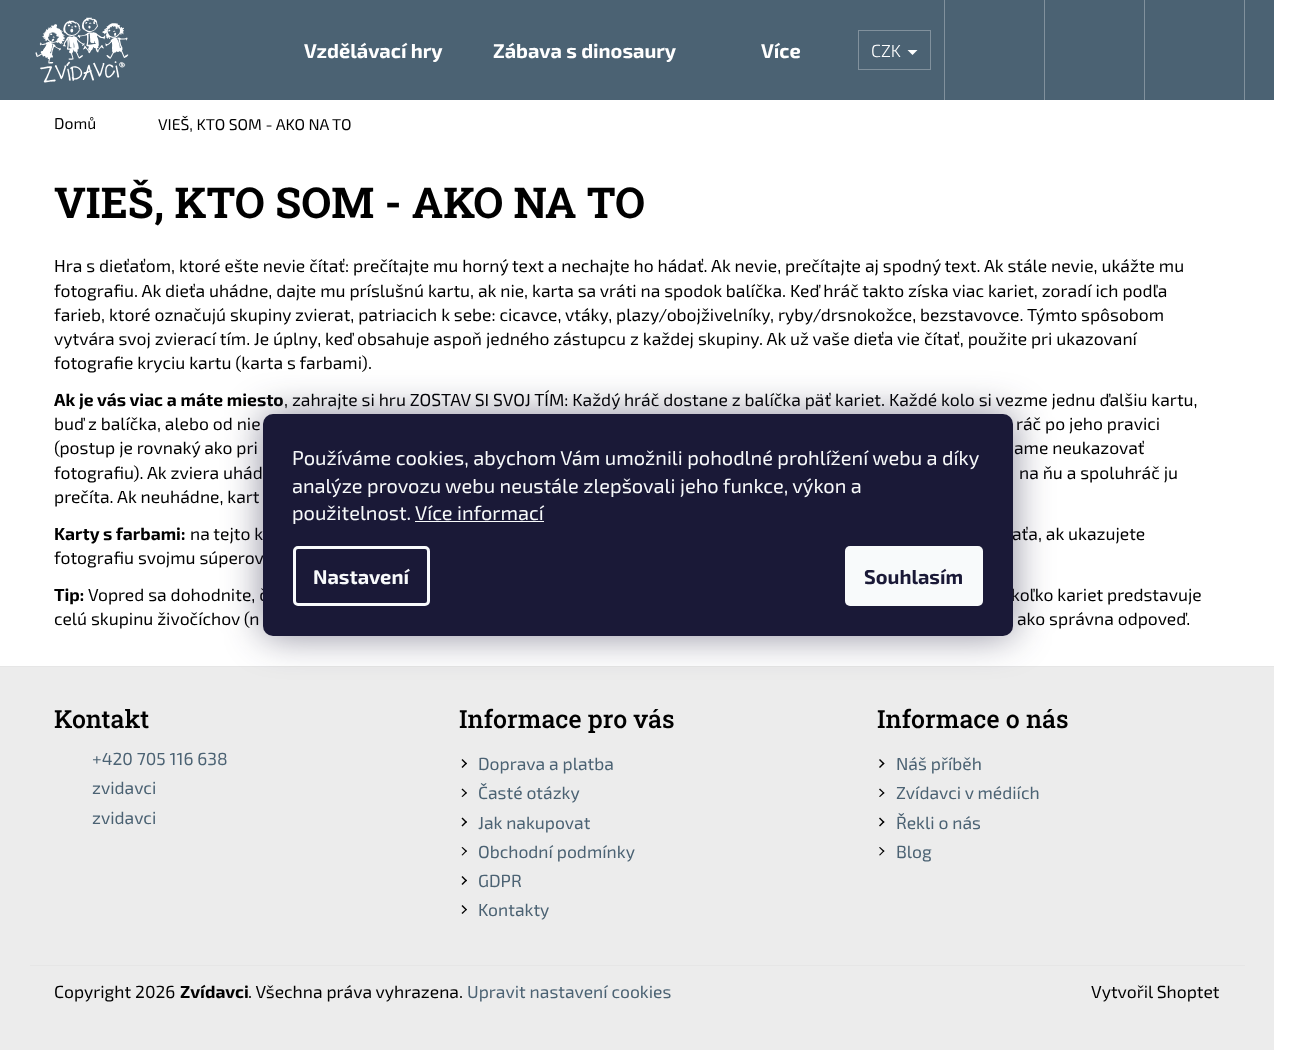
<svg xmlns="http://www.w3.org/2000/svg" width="1292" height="1050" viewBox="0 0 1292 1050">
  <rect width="100%" height="100%" fill="rgb(255,255,255)"/>
  <rect x="0" y="0" width="1274" height="100" fill="rgb(75,98,115)"/>
  <image x="35" y="17" width="94" height="66" href="pic1.png"/>
  <g font-family="'Exo 2'" font-size="20" font-weight="bold" fill="rgb(255,255,255)">
    <text x="304" y="58">Vzdělávací hry</text>
    <text x="493" y="58">Zábava s dinosaury</text>
    <text x="761" y="58">Více</text>
  </g>
  <rect x="1244" y="0" width="1" height="100" fill="rgb(129,145,157)"/>
  <rect x="858.5" y="30.5" width="72" height="39" fill="none" stroke="rgb(129,145,157)"/>
  <text x="871" y="57" font-family="'Exo 2'" font-size="17.5" font-weight="300" fill="rgb(255,255,255)">CZK</text>
  <path d="M907.5 50H917.5L912.5 55Z" fill="rgb(255,255,255)"/>
  <rect x="944" y="0" width="1" height="100" fill="rgb(129,145,157)"/>
  <rect x="1044" y="0" width="1" height="100" fill="rgb(129,145,157)"/>
  <rect x="1144" y="0" width="1" height="100" fill="rgb(129,145,157)"/>
  <g font-family="'Exo 2'" font-size="15.75" fill="rgb(0,0,0)">
    <text x="54" y="129">Domů</text>
    <text x="158" y="130">VIEŠ, KTO SOM - AKO NA TO</text>
  </g>
  <text x="54" y="218" font-family="Roboto Slab" font-size="42.5" font-weight="bold" fill="rgb(0,0,0)">VIEŠ, KTO SOM - AKO NA TO</text>
  <g font-family="'Exo 2'" font-size="17.5" fill="rgb(0,0,0)">
    <text>
      <tspan x="54" y="272">Hra s dieťaťom, ktoré ešte nevie čítať: prečítajte mu horný text a nechajte ho hádať. Ak nevie, prečítajte aj spodný text. Ak stále nevie, ukážte mu</tspan>
      <tspan x="54" y="297">fotografiu. Ak dieťa uhádne, dajte mu príslušnú kartu, ak nie, karta sa vráti na spodok balíčka. Keď hráč takto získa viac kariet, zoradí ich podľa</tspan>
      <tspan x="54" y="321">farieb, ktoré označujú skupiny zvierat, patriacich k sebe: cicavce, vtáky, plazy/obojživelníky, ryby/drsnokožce, bezstavovce. Týmto spôsobom</tspan>
      <tspan x="54" y="345">vytvára svoj zvierací tím. Je úplny, keď obsahuje aspoň jedného zástupcu z každej skupiny. Ak už vaše dieťa vie čítať, použite pri ukazovaní</tspan>
      <tspan x="54" y="369">fotografie kryciu kartu (karta s farbami).</tspan>
    </text>
  </g>
  <text x="54" y="406" font-family="'Exo 2'" font-size="17.5" font-weight="bold" fill="rgb(0,0,0)">Ak je vás viac a máte miesto</text>
  <g font-family="'Exo 2'" font-size="17.5" fill="rgb(0,0,0)">
    <text x="284" y="406">, zahrajte si hru ZOSTAV SI SVOJ TÍM: Každý hráč dostane z balíčka päť kariet. Každé kolo si vezme jednu ďalšiu kartu,</text>
    <text x="54" y="430">buď z balíčka, alebo od nie</text>
    <text x="1016" y="430">ráč po jeho pravici</text>
    <text x="54" y="454">(postup je rovnaký ako pri</text>
    <text x="1014" y="454">ame neukazovať</text>
    <text x="54" y="479">fotografiu). Ak zviera uhád</text>
    <text x="1019" y="479">na ňu a spoluhráč ju</text>
    <text x="54" y="503">prečíta. Ak neuhádne, kart</text>
  </g>
  <text x="54" y="540" font-family="'Exo 2'" font-size="17.5" font-weight="bold" fill="rgb(0,0,0)">Karty s farbami:</text>
  <g font-family="'Exo 2'" font-size="17.5" fill="rgb(0,0,0)">
    <text x="190" y="540">na tejto k</text>
    <text x="1012" y="540">aťa, ak ukazujete</text>
    <text x="54" y="564">fotografiu svojmu súperov</text>
  </g>
  <text x="54" y="601" font-family="'Exo 2'" font-size="17.5" font-weight="bold" fill="rgb(0,0,0)">Tip:</text>
  <g font-family="'Exo 2'" font-size="17.5" fill="rgb(0,0,0)">
    <text x="88" y="601">Vopred sa dohodnite, č</text>
    <text x="1011" y="601">koľko kariet predstavuje</text>
    <text x="54" y="625">celú skupinu živočíchov (n</text>
    <text x="1017" y="625">ako správna odpoveď.</text>
  </g>
  <rect x="0" y="667" width="1274" height="383" fill="rgb(236,236,236)"/>
  <rect x="0" y="666" width="1274" height="1" fill="rgb(230,230,230)"/>
  <text x="54" y="728" font-family="Roboto Slab" font-size="25" font-weight="500" fill="rgb(0,0,0)">Kontakt</text>
  <g font-family="'Exo 2'" font-size="17.5" fill="rgb(75,98,115)">
    <text>
      <tspan x="92" y="765">+420 705 116 638</tspan>
      <tspan x="92" y="794">zvidavci</tspan>
      <tspan x="92" y="824">zvidavci</tspan>
    </text>
  </g>
  <text x="459" y="728" font-family="Roboto Slab" font-size="25" font-weight="500" fill="rgb(0,0,0)">Informace pro vás</text>
  <path d="M461.5 760L462.5 759L467 763.5L466 764.5Z" fill="rgb(0,0,0)"/>
  <path d="M461.5 767L466 762.5L467 763.5L462.5 768Z" fill="rgb(0,0,0)"/>
  <text x="478" y="770" font-family="'Exo 2'" font-size="17.5" fill="rgb(75,98,115)">Doprava a platba</text>
  <path d="M461.5 789.5L462.5 788.5L467 793L466 793.5Z" fill="rgb(0,0,0)"/>
  <path d="M461.5 796.5L466 792L467 793L462.5 797Z" fill="rgb(0,0,0)"/>
  <text x="478" y="799" font-family="'Exo 2'" font-size="17.5" fill="rgb(75,98,115)">Časté otázky</text>
  <path d="M461.5 818.5L462.5 817.5L467 822L466 823Z" fill="rgb(0,0,0)"/>
  <path d="M461.5 825.5L466 821L467 822L462.5 826.5Z" fill="rgb(0,0,0)"/>
  <text x="478" y="829" font-family="'Exo 2'" font-size="17.5" fill="rgb(75,98,115)">Jak nakupovat</text>
  <path d="M461.5 847.5L462.5 847L467 851L466 852Z" fill="rgb(0,0,0)"/>
  <path d="M461.5 855L466 850.5L467 851L462.5 855.5Z" fill="rgb(0,0,0)"/>
  <text x="478" y="858" font-family="'Exo 2'" font-size="17.5" fill="rgb(75,98,115)">Obchodní podmínky</text>
  <path d="M461.5 877L462.5 876L467 880.5L466 881.5Z" fill="rgb(0,0,0)"/>
  <path d="M461.5 884L466 879.5L467 880.5L462.5 885Z" fill="rgb(0,0,0)"/>
  <text x="478" y="887" font-family="'Exo 2'" font-size="17.5" fill="rgb(75,98,115)">GDPR</text>
  <path d="M461.5 906L462.5 905L467 909.5L466 910.5Z" fill="rgb(0,0,0)"/>
  <path d="M461.5 913L466 909L467 909.5L462.5 914Z" fill="rgb(0,0,0)"/>
  <text x="478" y="916" font-family="'Exo 2'" font-size="17.5" fill="rgb(75,98,115)">Kontakty</text>
  <text x="877" y="728" font-family="Roboto Slab" font-size="25" font-weight="500" fill="rgb(0,0,0)">Informace o nás</text>
  <path d="M879 760L880 759L884.5 763.5L883.5 764.5Z" fill="rgb(0,0,0)"/>
  <path d="M879 767L883.5 762.5L884.5 763.5L880 768Z" fill="rgb(0,0,0)"/>
  <text x="896" y="770" font-family="'Exo 2'" font-size="17.5" fill="rgb(75,98,115)">Náš příběh</text>
  <path d="M879 789.5L880 788.5L884.5 793L883.5 793.5Z" fill="rgb(0,0,0)"/>
  <path d="M879 796.5L883.5 792L884.5 793L880 797Z" fill="rgb(0,0,0)"/>
  <text x="896" y="799" font-family="'Exo 2'" font-size="17.5" fill="rgb(75,98,115)">Zvídavci v médiích</text>
  <path d="M879 818.5L880 817.5L884.5 822L883.5 823Z" fill="rgb(0,0,0)"/>
  <path d="M879 825.5L883.5 821L884.5 822L880 826.5Z" fill="rgb(0,0,0)"/>
  <text x="896" y="829" font-family="'Exo 2'" font-size="17.5" fill="rgb(75,98,115)">Řekli o nás</text>
  <path d="M879 847.5L880 847L884.5 851L883.5 852Z" fill="rgb(0,0,0)"/>
  <path d="M879 855L883.5 850.5L884.5 851L880 855.5Z" fill="rgb(0,0,0)"/>
  <text x="896" y="858" font-family="'Exo 2'" font-size="17.5" fill="rgb(75,98,115)">Blog</text>
  <rect x="30" y="965" width="1215" height="1" fill="rgb(230,230,230)"/>
  <text x="54" y="998" font-family="'Exo 2'" font-size="17.5" fill="rgb(0,0,0)">Copyright 2026</text>
  <text x="180" y="998" font-family="'Exo 2'" font-size="17.5" font-weight="bold" fill="rgb(0,0,0)">Zvídavci</text>
  <text x="248" y="998" font-family="'Exo 2'" font-size="17.5" fill="rgb(0,0,0)">. Všechna práva vyhrazena.</text>
  <text x="467" y="998" font-family="'Exo 2'" font-size="17.5" fill="rgb(75,98,115)">Upravit nastavení cookies</text>
  <text x="1091" y="998" font-family="'Exo 2'" font-size="17.5" fill="rgb(0,0,0)">Vytvořil Shoptet</text>
  <rect x="263" y="414" width="750" height="222" rx="10" fill="rgba(27,25,57,0.5)" filter="blur(19px)"/>
  <rect x="263" y="414" width="750" height="222" rx="10" fill="rgb(26,25,55)"/>
  <g font-family="'Exo 2'" font-size="20" fill="rgb(248,250,251)">
    <text>
      <tspan x="292" y="465">Používáme cookies, abychom Vám umožnili pohodlné prohlížení webu a díky</tspan>
      <tspan x="292" y="493">analýze provozu webu neustále zlepšovali jeho funkce, výkon a</tspan>
      <tspan x="292" y="520">použitelnost.</tspan>
    </text>
    <text x="415" y="520">Více informací</text>
  </g>
  <rect x="415" y="521" width="129" height="1" fill="rgb(248,250,251)"/>
  <rect x="294.5" y="547.5" width="134" height="57" rx="3.5" fill="none" stroke="rgb(248,250,251)" stroke-width="3"/>
  <text x="313" y="584" font-family="'Exo 2'" font-size="20" font-weight="bold" fill="rgb(248,250,251)">Nastavení</text>
  <rect x="845" y="546" width="138" height="60" rx="5" fill="rgb(248,250,251)"/>
  <text x="864" y="584" font-family="'Exo 2'" font-size="20" font-weight="bold" fill="rgb(26,25,55)">Souhlasím</text>
</svg>
